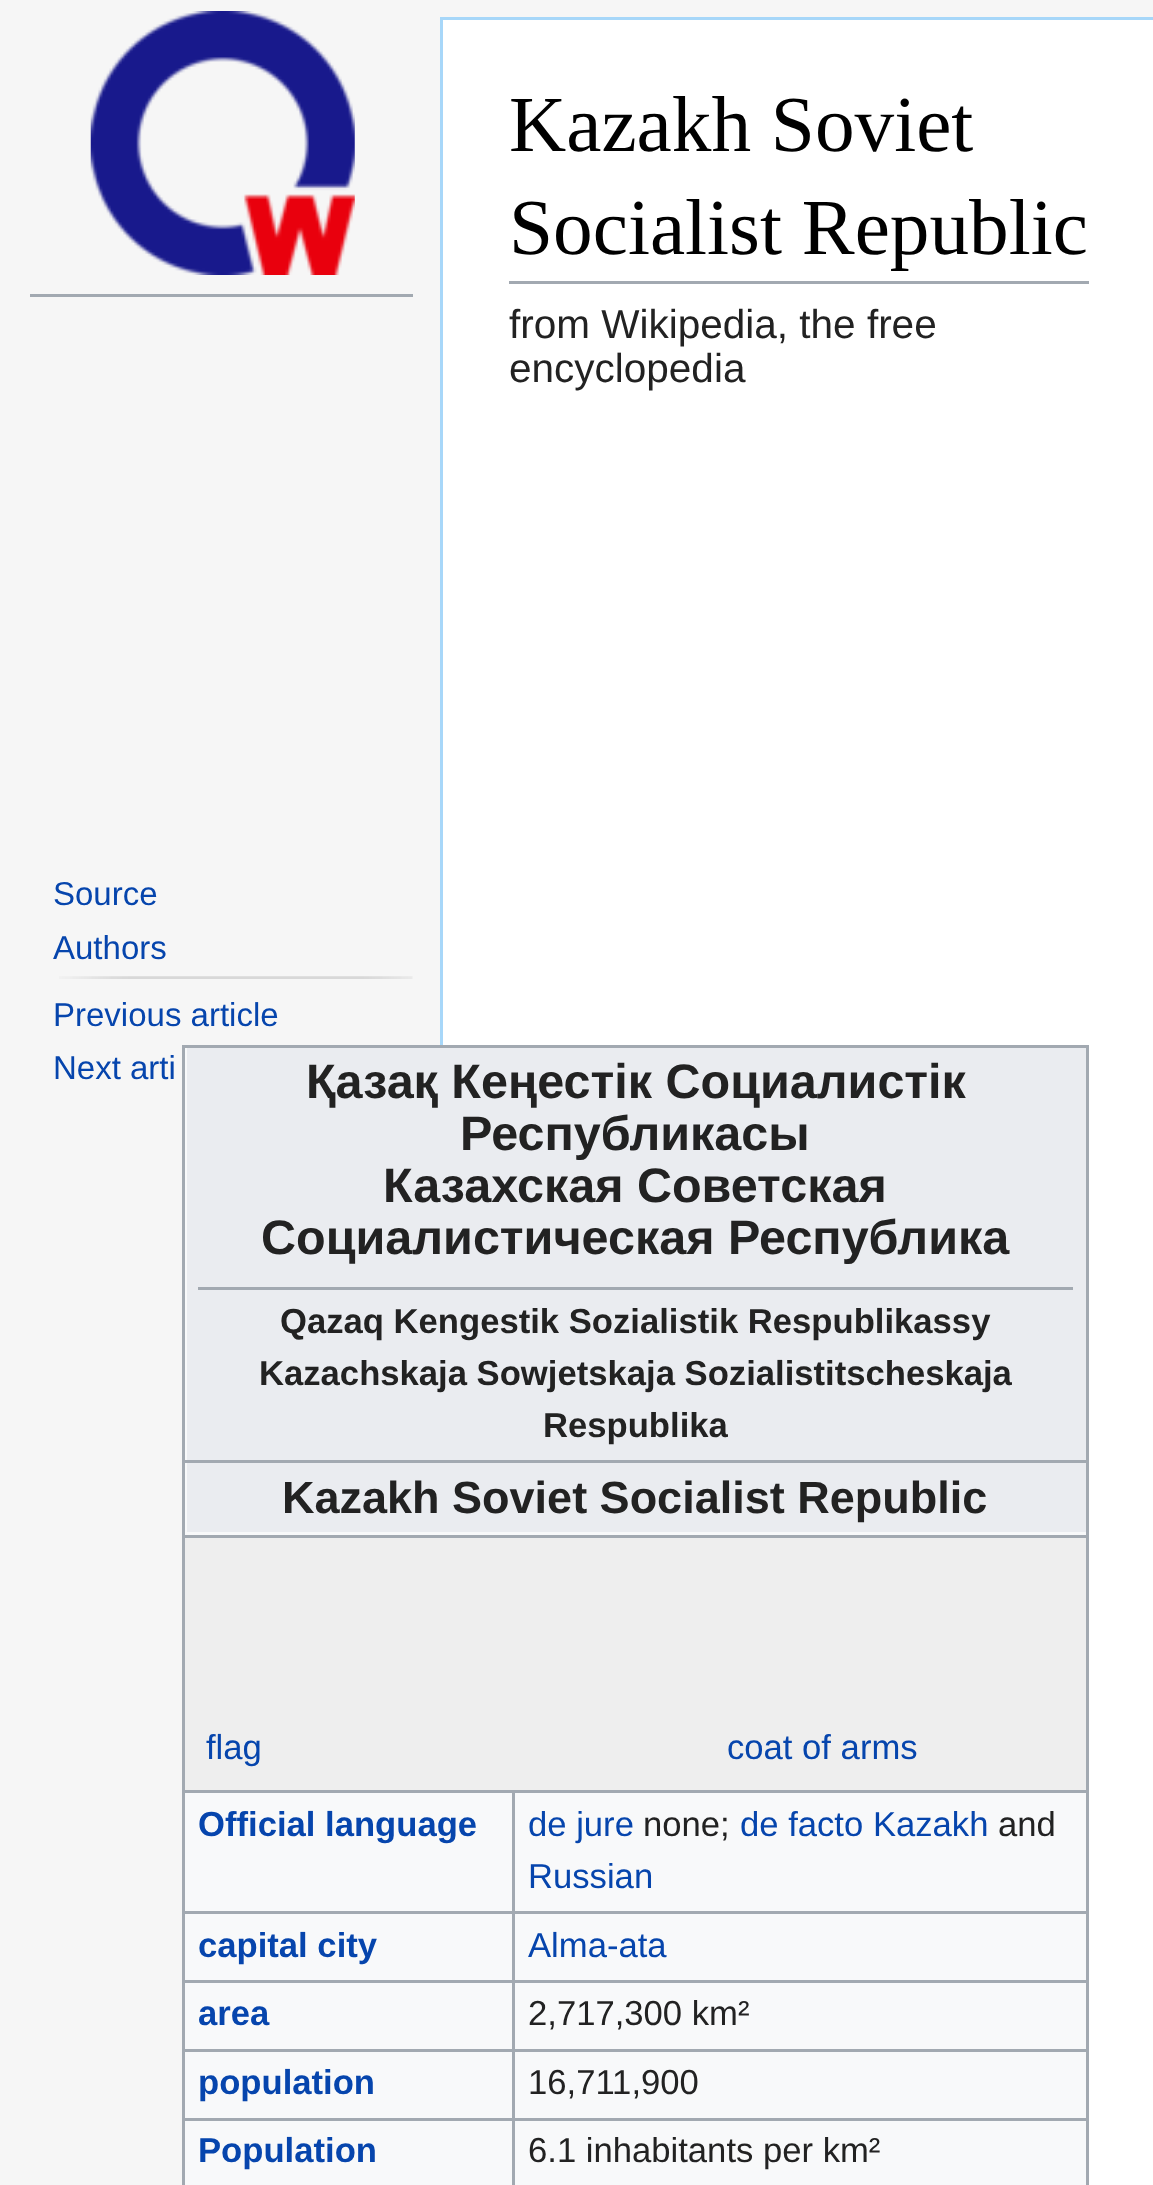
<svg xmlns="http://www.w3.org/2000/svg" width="1153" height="2185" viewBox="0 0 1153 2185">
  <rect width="100%" height="100%" fill="rgb(246,246,246)"/>
  <image x="90" y="11" width="265" height="264" href="pic1.png"/>
  <rect x="30" y="294" width="383" height="3" fill="rgb(162,169,177)"/>
  <g font-family="Liberation Sans" font-size="33" fill="rgb(6,69,173)">
    <text>
      <tspan x="53" y="905">Source</tspan>
      <tspan x="53" y="959">Authors</tspan>
    </text>
  </g>
  <image x="59" y="976" width="354" height="3" href="pic2.png"/>
  <g font-family="Liberation Sans" font-size="33" fill="rgb(6,69,173)">
    <text>
      <tspan x="53" y="1026">Previous article</tspan>
      <tspan x="53" y="1079">Next arti</tspan>
    </text>
  </g>
  <rect x="443" y="20" width="710" height="2165" fill="rgb(255,255,255)"/>
  <rect x="440" y="17" width="713" height="3" fill="rgb(167,215,249)"/>
  <rect x="440" y="17" width="3" height="1028" fill="rgb(167,215,249)"/>
  <rect x="509" y="281" width="580" height="3" fill="rgb(162,169,177)"/>
  <g font-family="Liberation Serif" font-size="79.25" fill="rgb(0,0,0)">
    <text>
      <tspan x="509" y="151">Kazakh Soviet</tspan>
      <tspan x="509" y="254">Socialist Republic</tspan>
    </text>
  </g>
  <g font-family="Liberation Sans" font-size="40.5" fill="rgb(34,34,34)">
    <text>
      <tspan x="509" y="338">from Wikipedia, the free</tspan>
      <tspan x="509" y="382">encyclopedia</tspan>
    </text>
  </g>
  <rect x="185" y="1048" width="901" height="1137" fill="rgb(248,249,250)"/>
  <rect x="182" y="1045" width="907" height="3" fill="rgb(162,169,177)"/>
  <rect x="1086" y="1045" width="3" height="1140" fill="rgb(162,169,177)"/>
  <rect x="182" y="1045" width="3" height="1140" fill="rgb(162,169,177)"/>
  <rect x="187" y="1048" width="899" height="412" fill="rgb(234,236,240)"/>
  <g font-family="Liberation Sans" font-size="48.5" font-weight="bold" fill="rgb(34,34,34)">
    <text x="306" y="1098">Қазақ Кеңестік Социалистік</text>
    <text x="460" y="1150">Республикасы</text>
    <text x="383" y="1202">Казахская Советская</text>
    <text x="261" y="1254">Социалистическая Республика</text>
  </g>
  <rect x="182" y="1460" width="907" height="3" fill="rgb(162,169,177)"/>
  <rect x="198" y="1287" width="875" height="3" fill="rgb(162,169,177)"/>
  <g font-family="Liberation Sans" font-size="34.65" font-weight="bold" fill="rgb(34,34,34)">
    <text x="280" y="1333">Qazaq Kengestik Sozialistik Respublikassy</text>
    <text x="259" y="1385">Kazachskaja Sowjetskaja Sozialistitscheskaja</text>
    <text x="543" y="1437">Respublika</text>
  </g>
  <rect x="187" y="1463" width="899" height="69" fill="rgb(234,236,240)"/>
  <text x="282" y="1513" font-family="Liberation Sans" font-size="45" font-weight="bold" fill="rgb(34,34,34)">Kazakh Soviet Socialist Republic</text>
  <rect x="185" y="1538" width="901" height="252" fill="rgb(238,238,238)"/>
  <rect x="182" y="1535" width="907" height="3" fill="rgb(162,169,177)"/>
  <g font-family="Liberation Sans" font-size="34.65" fill="rgb(6,69,173)">
    <text x="206" y="1759">flag</text>
    <text x="727" y="1759">coat of arms</text>
  </g>
  <rect x="512" y="1790" width="577" height="3" fill="rgb(162,169,177)"/>
  <rect x="512" y="1911" width="577" height="3" fill="rgb(162,169,177)"/>
  <rect x="512" y="1980" width="577" height="3" fill="rgb(162,169,177)"/>
  <rect x="512" y="2049" width="577" height="3" fill="rgb(162,169,177)"/>
  <rect x="512" y="2118" width="577" height="3" fill="rgb(162,169,177)"/>
  <rect x="512" y="2118" width="3" height="67" fill="rgb(162,169,177)"/>
  <rect x="182" y="2118" width="332" height="3" fill="rgb(162,169,177)"/>
  <rect x="512" y="2049" width="3" height="71" fill="rgb(162,169,177)"/>
  <rect x="182" y="2049" width="332" height="3" fill="rgb(162,169,177)"/>
  <rect x="512" y="1980" width="3" height="72" fill="rgb(162,169,177)"/>
  <rect x="182" y="1980" width="332" height="3" fill="rgb(162,169,177)"/>
  <rect x="512" y="1911" width="3" height="72" fill="rgb(162,169,177)"/>
  <rect x="182" y="1911" width="332" height="3" fill="rgb(162,169,177)"/>
  <rect x="512" y="1790" width="3" height="124" fill="rgb(162,169,177)"/>
  <rect x="182" y="1790" width="332" height="3" fill="rgb(162,169,177)"/>
  <text x="198" y="1836" font-family="Liberation Sans" font-size="34.65" font-weight="bold" fill="rgb(6,69,173)">Official language</text>
  <text x="528" y="1836" font-family="Liberation Sans" font-size="34.65" fill="rgb(6,69,173)">de jure</text>
  <text x="643" y="1836" font-family="Liberation Sans" font-size="34.65" fill="rgb(34,34,34)">none;</text>
  <text x="740" y="1836" font-family="Liberation Sans" font-size="34.65" fill="rgb(6,69,173)">de facto Kazakh</text>
  <text x="998" y="1836" font-family="Liberation Sans" font-size="34.65" fill="rgb(34,34,34)">and</text>
  <text x="528" y="1888" font-family="Liberation Sans" font-size="34.65" fill="rgb(6,69,173)">Russian</text>
  <text x="198" y="1957" font-family="Liberation Sans" font-size="34.65" font-weight="bold" fill="rgb(6,69,173)">capital city</text>
  <text x="528" y="1957" font-family="Liberation Sans" font-size="34.65" fill="rgb(6,69,173)">Alma-ata</text>
  <text x="198" y="2025" font-family="Liberation Sans" font-size="34.65" font-weight="bold" fill="rgb(6,69,173)">area</text>
  <text x="528" y="2025" font-family="Liberation Sans" font-size="34.65" fill="rgb(34,34,34)">2,717,300 km²</text>
  <text x="198" y="2094" font-family="Liberation Sans" font-size="34.65" font-weight="bold" fill="rgb(6,69,173)">population</text>
  <text x="528" y="2094" font-family="Liberation Sans" font-size="34.65" fill="rgb(34,34,34)">16,711,900</text>
  <text x="198" y="2162" font-family="Liberation Sans" font-size="34.65" font-weight="bold" fill="rgb(6,69,173)">Population</text>
  <text x="528" y="2162" font-family="Liberation Sans" font-size="34.65" fill="rgb(34,34,34)">6.1 inhabitants per km²</text>
</svg>
